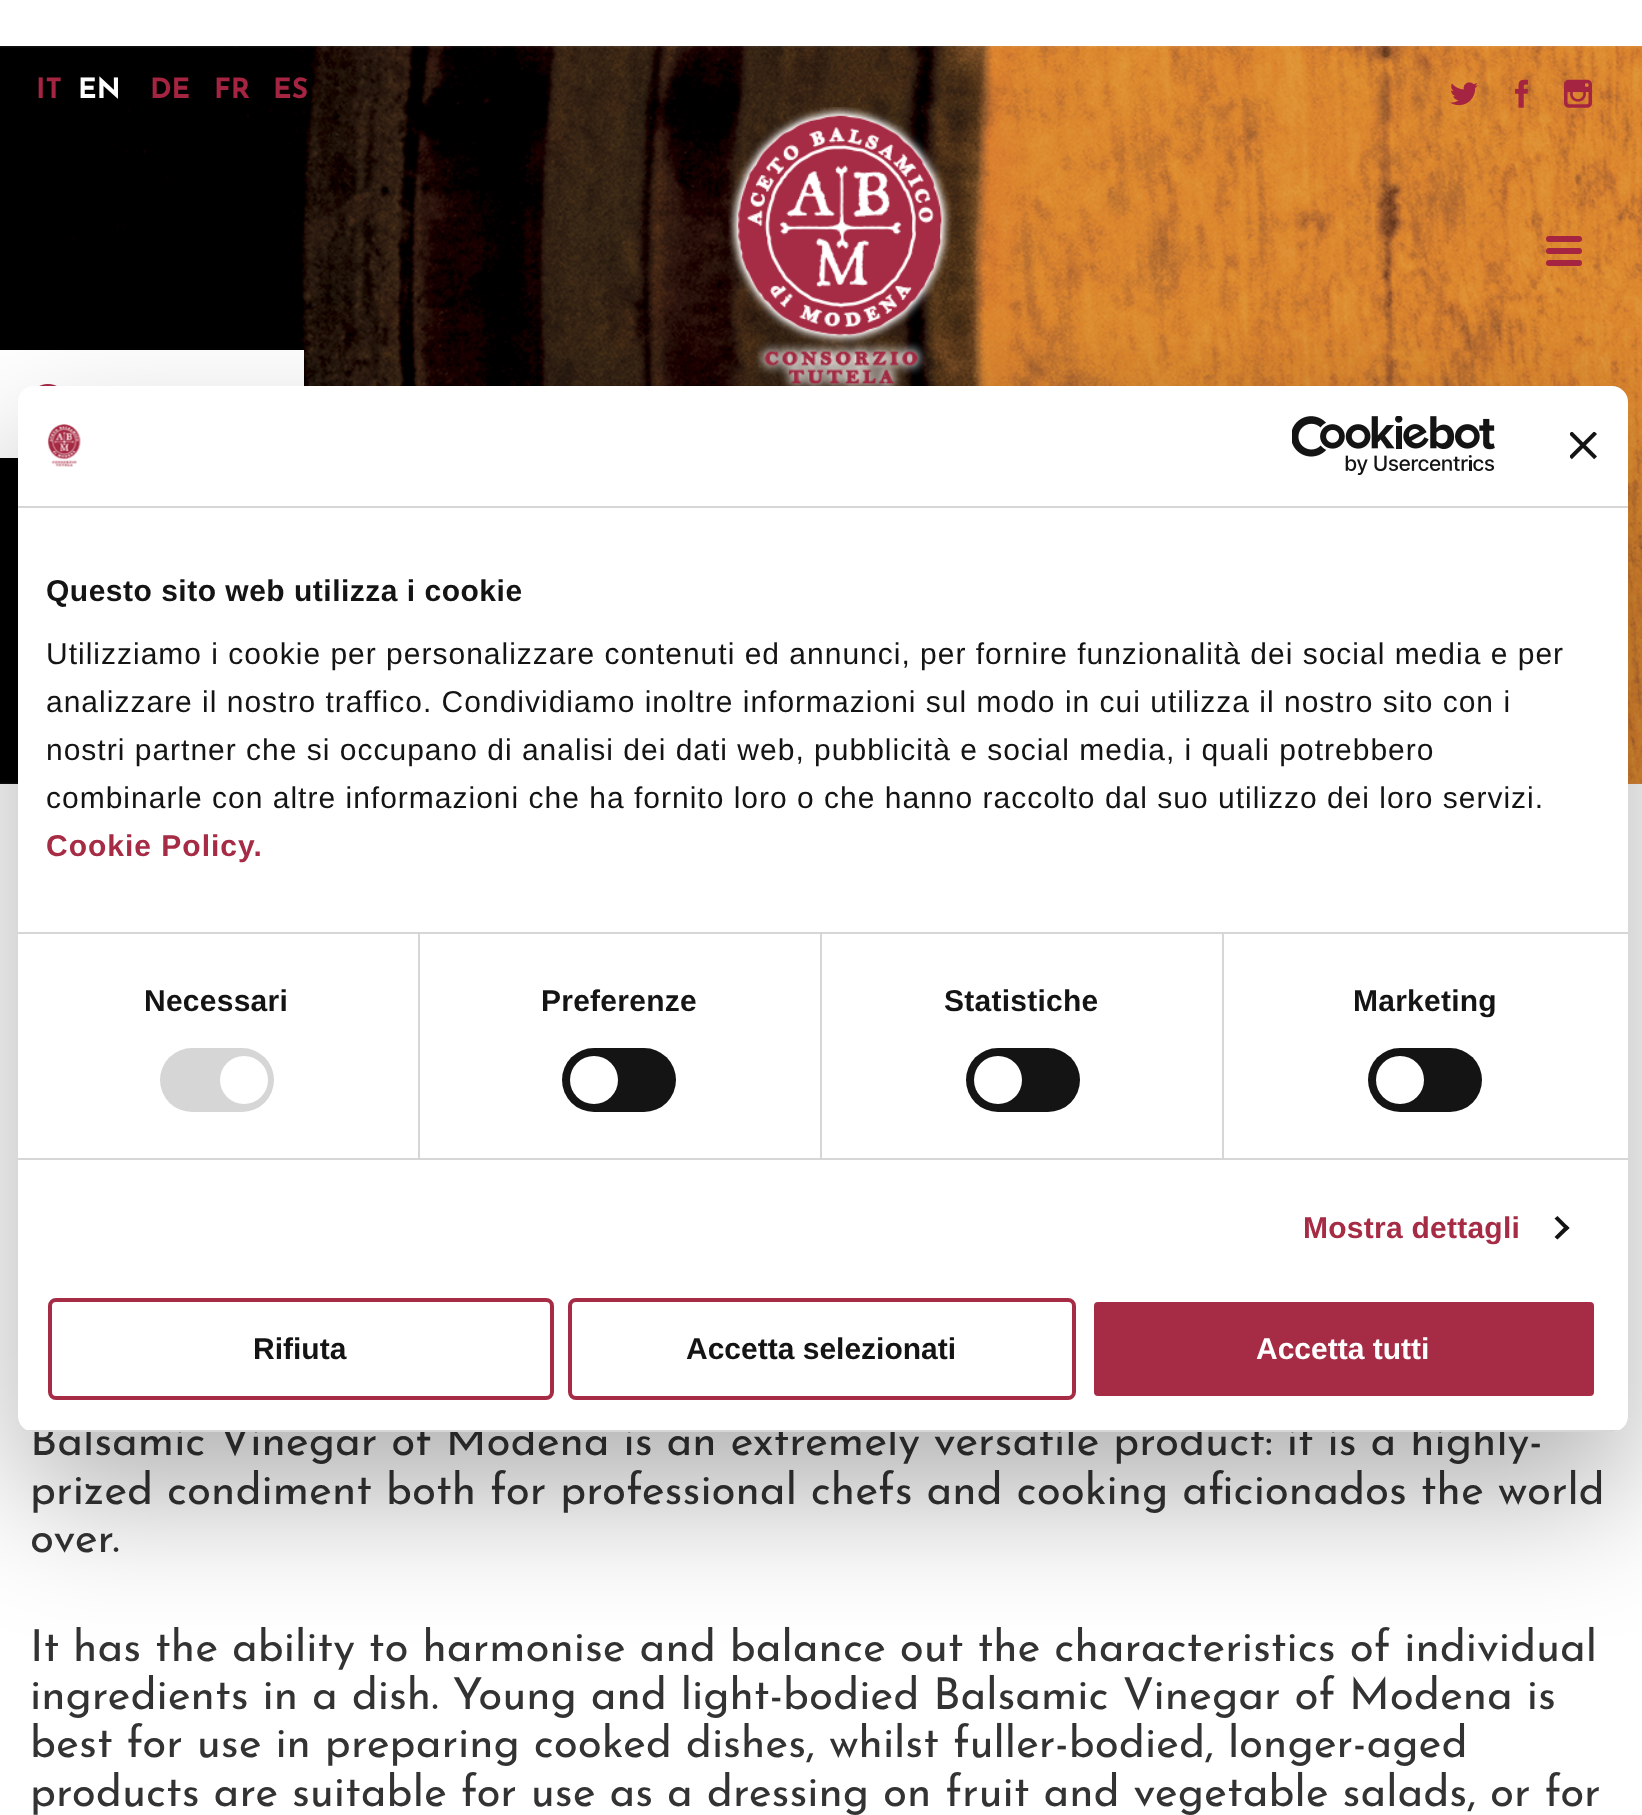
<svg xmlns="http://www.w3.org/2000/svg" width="1642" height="1815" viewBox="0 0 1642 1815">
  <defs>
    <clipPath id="clip1"><rect x="18" y="386" width="1610" height="1046" rx="16"/></clipPath>
  </defs>
  <rect width="100%" height="100%" fill="rgb(255,255,255)"/>
  <image x="0" y="46" width="1642" height="738" href="pic1.png"/>
  <text x="36" y="98" font-family="Josefin Sans" font-size="28" font-weight="bold" fill="rgb(164,36,65)">IT</text>
  <text x="78" y="98" font-family="Josefin Sans" font-size="28" font-weight="bold" fill="rgb(255,255,255)">EN</text>
  <g font-family="Josefin Sans" font-size="28" font-weight="bold" fill="rgb(164,36,65)">
    <text x="150" y="98">DE</text>
    <text x="214" y="98">FR</text>
    <text x="273" y="98">ES</text>
  </g>
  <image x="1450" y="82" width="28" height="24" href="pic2.png"/>
  <image x="1515" y="79" width="14" height="29" href="pic3.png"/>
  <image x="1564" y="79" width="28" height="29" href="pic4.png"/>
  <image x="728" y="107" width="224" height="279" href="pic5.png"/>
  <rect x="1546" y="236" width="36" height="6" rx="3" fill="rgb(164,36,65)"/>
  <rect x="1546" y="248" width="36" height="6" rx="3" fill="rgb(164,36,65)"/>
  <rect x="1546" y="260" width="36" height="6" rx="3" fill="rgb(164,36,65)"/>
  <rect x="0" y="350" width="304" height="108" fill="rgb(255,255,255)"/>
  <image x="39" y="384" width="18" height="2" href="pic6.png"/>
  <g font-family="Josefin Sans" font-size="44" fill="rgb(51,51,51)">
    <text>
      <tspan x="30" y="1455">Balsamic Vinegar of Modena is an extremely versatile product: it is a highly-</tspan>
      <tspan x="30" y="1504">prized condiment both for professional chefs and cooking aficionados the world</tspan>
      <tspan x="30" y="1552">over.</tspan>
    </text>
    <text>
      <tspan x="30" y="1661">It has the ability to harmonise and balance out the characteristics of individual</tspan>
      <tspan x="30" y="1709">ingredients in a dish. Young and light-bodied Balsamic Vinegar of Modena is</tspan>
      <tspan x="30" y="1757">best for use in preparing cooked dishes, whilst fuller-bodied, longer-aged</tspan>
      <tspan x="30" y="1806">products are suitable for use as a dressing on fruit and vegetable salads, or for</tspan>
    </text>
  </g>
  <rect x="18" y="450" width="1610" height="1046" rx="16" fill="rgba(0,0,0,0.3)" filter="blur(68px)"/>
  <rect x="18" y="386" width="1610" height="1046" rx="16" fill="rgb(255,255,255)"/>
  <rect x="18" y="506" width="1610" height="2" fill="rgb(214,214,214)"/>
  <image x="47" y="424" width="34" height="43" href="pic7.png"/>
  <image x="1292" y="416" width="203" height="60" href="pic8.png"/>
  <image x="1570" y="432" width="27" height="28" href="pic9.png"/>
  <rect x="18" y="932" width="1610" height="2" fill="rgb(214,214,214)"/>
  <text x="46" y="601" font-family="Liberation Sans" font-size="30" font-weight="bold" letter-spacing="0.5" fill="rgb(20,20,20)">Questo sito web utilizza i cookie</text>
  <g font-family="Liberation Sans" font-size="30" letter-spacing="1" fill="rgb(20,20,20)">
    <text>
      <tspan x="46" y="664">Utilizziamo i cookie per personalizzare contenuti ed annunci, per fornire funzionalità dei social media e per</tspan>
      <tspan x="46" y="712">analizzare il nostro traffico. Condividiamo inoltre informazioni sul modo in cui utilizza il nostro sito con i</tspan>
      <tspan x="46" y="760">nostri partner che si occupano di analisi dei dati web, pubblicità e social media, i quali potrebbero</tspan>
      <tspan x="46" y="808">combinarle con altre informazioni che ha fornito loro o che hanno raccolto dal suo utilizzo dei loro servizi.</tspan>
    </text>
  </g>
  <text x="46" y="856" font-family="Liberation Sans" font-size="30" font-weight="bold" letter-spacing="1" fill="rgb(166,43,68)">Cookie Policy.</text>
  <rect x="18" y="1158" width="1610" height="2" fill="rgb(214,214,214)"/>
  <rect x="418" y="934" width="2" height="224" fill="rgb(214,214,214)"/>
  <text x="144" y="1011" font-family="Liberation Sans" font-size="30" font-weight="bold" letter-spacing="0.25" fill="rgb(20,20,20)">Necessari</text>
  <rect x="160" y="1048" width="114" height="64" rx="32" fill="rgb(214,214,214)"/>
  <circle cx="244" cy="1080" r="24" fill="rgb(255,255,255)"/>
  <rect x="820" y="934" width="2" height="224" fill="rgb(214,214,214)"/>
  <text x="541" y="1011" font-family="Liberation Sans" font-size="30" font-weight="bold" letter-spacing="0.25" fill="rgb(20,20,20)">Preferenze</text>
  <rect x="562" y="1048" width="114" height="64" rx="32" fill="rgb(20,20,20)"/>
  <circle cx="594" cy="1080" r="24" fill="rgb(255,255,255)"/>
  <rect x="1222" y="934" width="2" height="224" fill="rgb(214,214,214)"/>
  <text x="944" y="1011" font-family="Liberation Sans" font-size="30" font-weight="bold" letter-spacing="0.25" fill="rgb(20,20,20)">Statistiche</text>
  <rect x="966" y="1048" width="114" height="64" rx="32" fill="rgb(20,20,20)"/>
  <circle cx="998" cy="1080" r="24" fill="rgb(255,255,255)"/>
  <text x="1353" y="1011" font-family="Liberation Sans" font-size="30" font-weight="bold" letter-spacing="0.25" fill="rgb(20,20,20)">Marketing</text>
  <rect x="1368" y="1048" width="114" height="64" rx="32" fill="rgb(20,20,20)"/>
  <circle cx="1400" cy="1080" r="24" fill="rgb(255,255,255)"/>
  <text x="1303" y="1238" font-family="Liberation Sans" font-size="30" font-weight="bold" letter-spacing="0.25" fill="rgb(166,43,68)">Mostra dettagli</text>
  <path d="M1557.5 1216L1569.5 1228L1566.5 1230.5L1554.5 1218.5Z" fill="rgb(20,20,20)"/>
  <path d="M1566.5 1225L1569.5 1228L1557.5 1239.5L1554.5 1237Z" fill="rgb(20,20,20)"/>
  <g clip-path="url(#clip1)">
    <rect x="18" y="1430" width="1610" height="2" fill="rgb(214,214,214)"/>
  </g>
  <rect x="50" y="1300" width="502" height="98" rx="6" fill="none" stroke="rgb(166,43,68)" stroke-width="4"/>
  <text x="253" y="1359" font-family="Liberation Sans" font-size="30" font-weight="bold" fill="rgb(20,20,20)">Rifiuta</text>
  <rect x="570" y="1300" width="504" height="98" rx="6" fill="none" stroke="rgb(166,43,68)" stroke-width="4"/>
  <text x="686" y="1359" font-family="Liberation Sans" font-size="30" font-weight="bold" fill="rgb(20,20,20)">Accetta selezionati</text>
  <rect x="1092" y="1300" width="504" height="98" rx="6" fill="rgb(166,43,68)" stroke="rgb(255,255,255)" stroke-width="4"/>
  <text x="1256" y="1359" font-family="Liberation Sans" font-size="30" font-weight="bold" fill="rgb(255,255,255)">Accetta tutti</text>
</svg>
